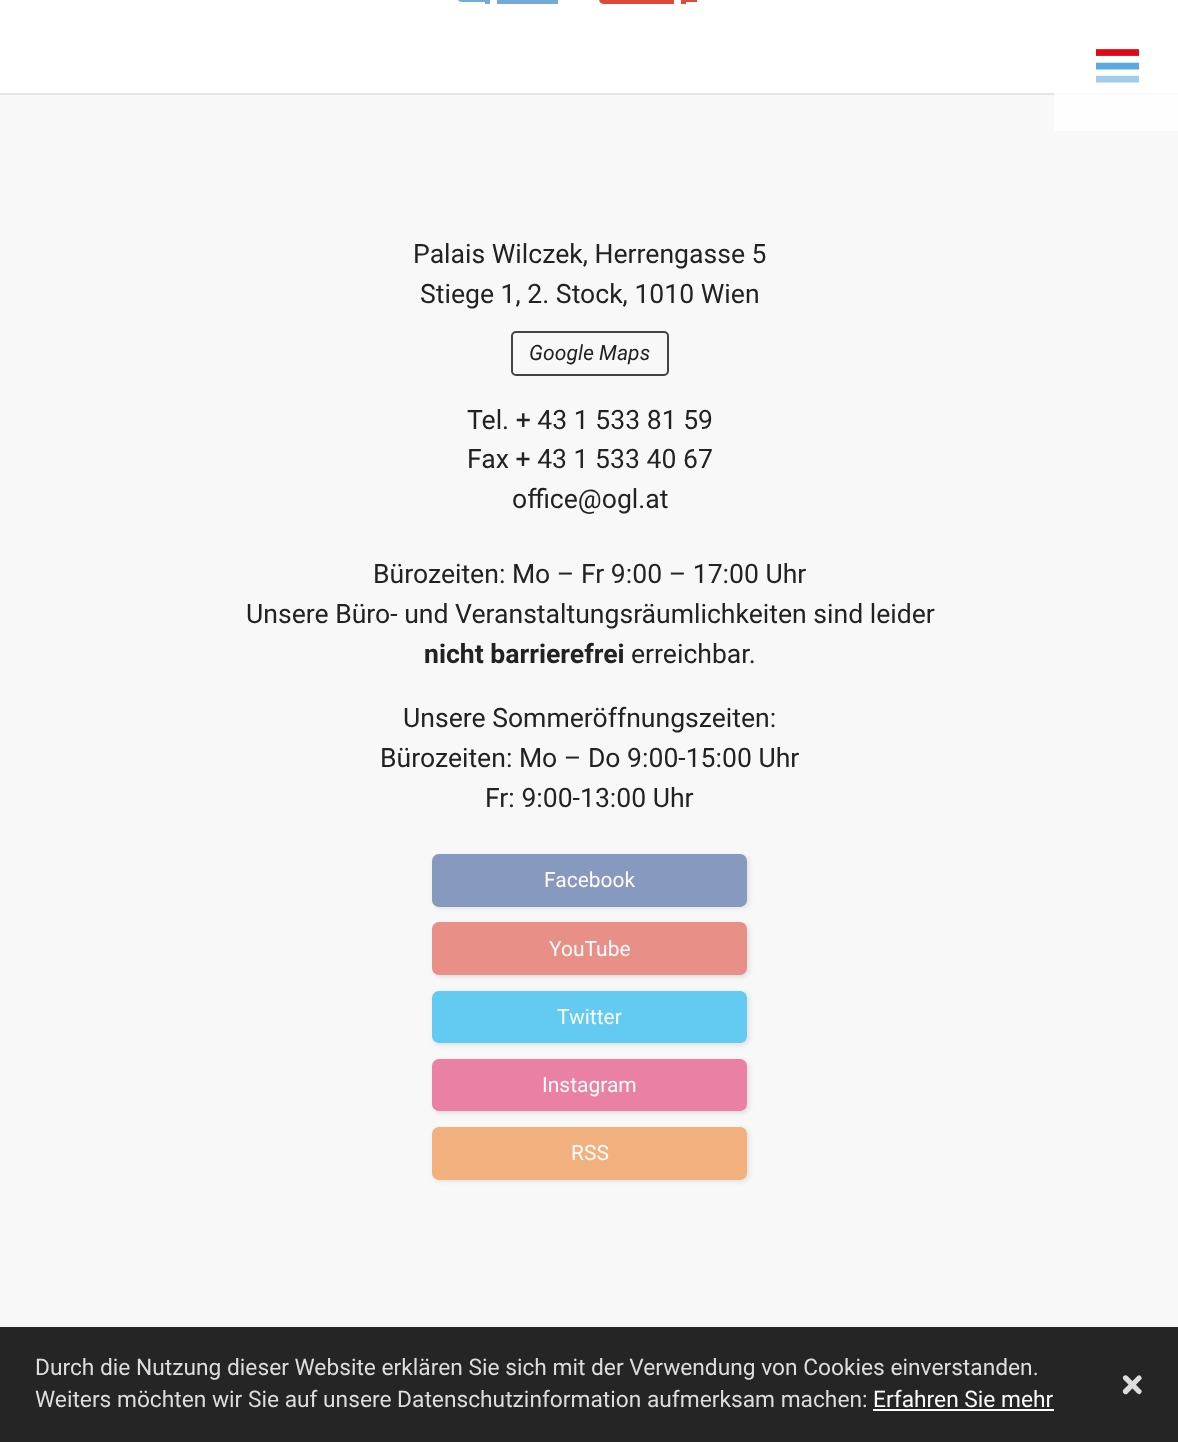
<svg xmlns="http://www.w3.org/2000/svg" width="1178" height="1442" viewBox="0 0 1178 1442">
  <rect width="100%" height="100%" fill="rgb(255,255,255)"/>
  <path d="M462-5H485V2H462C459 2 457 0 457-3V0C457-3 459-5 462-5Z" fill="rgb(115,170,218)"/>
  <rect x="485" y="0" width="5" height="4" fill="rgb(115,170,218)"/>
  <rect x="497" y="0" width="61" height="4" fill="rgb(115,170,218)"/>
  <path d="M604-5H674V4H604C601 4 599 2 599-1V0C599-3 601-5 604-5Z" fill="rgb(221,73,60)"/>
  <rect x="681" y="0" width="5" height="4" fill="rgb(221,73,60)"/>
  <rect x="686" y="0" width="11" height="2" fill="rgb(221,73,60)"/>
  <image x="1096" y="49" width="43" height="34" href="pic1.png"/>
  <rect x="0" y="95" width="1178" height="1232" fill="rgb(248,248,248)"/>
  <rect x="1054" y="95" width="124" height="36" fill="rgb(254,254,254)"/>
  <rect x="0" y="93" width="1054" height="2" fill="rgb(229,229,229)"/>
  <rect x="1054" y="93" width="124" height="2" fill="rgb(251,251,251)"/>
  <g font-family="Roboto" font-size="26.6" fill="rgb(34,34,34)">
    <text x="413" y="263">Palais Wilczek, Herrengasse 5</text>
    <text x="420" y="303">Stiege 1, 2. Stock, 1010 Wien</text>
  </g>
  <rect x="512" y="332" width="156" height="43" rx="4" fill="none" stroke="rgb(68,68,68)" stroke-width="2"/>
  <text x="529" y="360" font-family="Roboto" font-size="21" font-style="italic" fill="rgb(34,34,34)">Google Maps</text>
  <g font-family="Roboto" font-size="26.6" fill="rgb(34,34,34)">
    <text>
      <tspan x="467" y="429">Tel. + 43 1 533 81 59</tspan>
      <tspan x="467" y="468">Fax + 43 1 533 40 67</tspan>
    </text>
    <text x="512" y="508">office@ogl.at</text>
    <text x="373" y="583">Bürozeiten: Mo – Fr 9:00 – 17:00 Uhr</text>
    <text x="246" y="623">Unsere Büro- und Veranstaltungsräumlichkeiten sind leider</text>
  </g>
  <text x="424" y="663" font-family="Roboto" font-size="26.6" font-weight="bold" fill="rgb(34,34,34)">nicht barrierefrei</text>
  <g font-family="Roboto" font-size="26.6" fill="rgb(34,34,34)">
    <text x="631" y="663">erreichbar.</text>
    <text x="403" y="727">Unsere Sommeröffnungszeiten:</text>
    <text x="380" y="767">Bürozeiten: Mo – Do 9:00-15:00 Uhr</text>
    <text x="485" y="807">Fr: 9:00-13:00 Uhr</text>
  </g>
  <rect x="434" y="856" width="315" height="52" rx="7" fill="rgb(222,222,222)" filter="blur(2.5px)"/>
  <rect x="432" y="854" width="315" height="53" rx="7" fill="rgb(135,153,190)"/>
  <text x="544" y="887" font-family="Roboto" font-size="21" fill="rgb(252,252,252)">Facebook</text>
  <rect x="434" y="924" width="315" height="53" rx="7" fill="rgb(222,222,222)" filter="blur(2.5px)"/>
  <rect x="432" y="922" width="315" height="53" rx="7" fill="rgb(232,143,135)"/>
  <text x="549" y="956" font-family="Roboto" font-size="21" fill="rgb(252,252,252)">YouTube</text>
  <rect x="434" y="992" width="315" height="53" rx="7" fill="rgb(222,222,222)" filter="blur(2.5px)"/>
  <rect x="432" y="991" width="315" height="52" rx="7" fill="rgb(99,202,242)"/>
  <text x="557" y="1024" font-family="Roboto" font-size="21" fill="rgb(252,252,252)">Twitter</text>
  <rect x="434" y="1061" width="315" height="52" rx="7" fill="rgb(222,222,222)" filter="blur(2.5px)"/>
  <rect x="432" y="1059" width="315" height="52" rx="7" fill="rgb(234,128,164)"/>
  <text x="542" y="1092" font-family="Roboto" font-size="21" fill="rgb(252,252,252)">Instagram</text>
  <rect x="434" y="1129" width="315" height="52" rx="7" fill="rgb(222,222,222)" filter="blur(2.5px)"/>
  <rect x="432" y="1127" width="315" height="53" rx="7" fill="rgb(242,176,127)"/>
  <text x="571" y="1160" font-family="Roboto" font-size="21" fill="rgb(252,252,252)">RSS</text>
  <rect x="0" y="1327" width="1178" height="115" fill="rgb(37,37,37)"/>
  <g font-family="Roboto" font-size="22.75" fill="rgb(221,221,221)">
    <text>
      <tspan x="35" y="1375">Durch die Nutzung dieser Website erklären Sie sich mit der Verwendung von Cookies einverstanden.</tspan>
      <tspan x="35" y="1407">Weiters möchten wir Sie auf unsere Datenschutzinformation aufmerksam machen:</tspan>
    </text>
  </g>
  <text x="873" y="1407" font-family="Roboto" font-size="22.75" fill="rgb(252,252,252)">Erfahren Sie mehr</text>
  <rect x="873" y="1409" width="181" height="2" fill="rgb(255,255,255)"/>
  <path d="M1127.5 1376L1141.5 1390.5C1142 1391.5 1141.5 1392.5 1141 1393C1139 1396 1136.5 1392.5 1135 1391L1123.5 1379.5C1121.5 1377 1125 1374 1127.5 1376Z" fill="rgb(221,221,221)"/>
  <path d="M1123.5 1389.5L1135 1378.5C1136.5 1377 1139 1373.5 1141 1376.5C1141.5 1377.5 1142 1378 1141.5 1379L1127 1394C1124.5 1395.5 1121.5 1392 1123.5 1389.5Z" fill="rgb(221,221,221)"/>
</svg>
